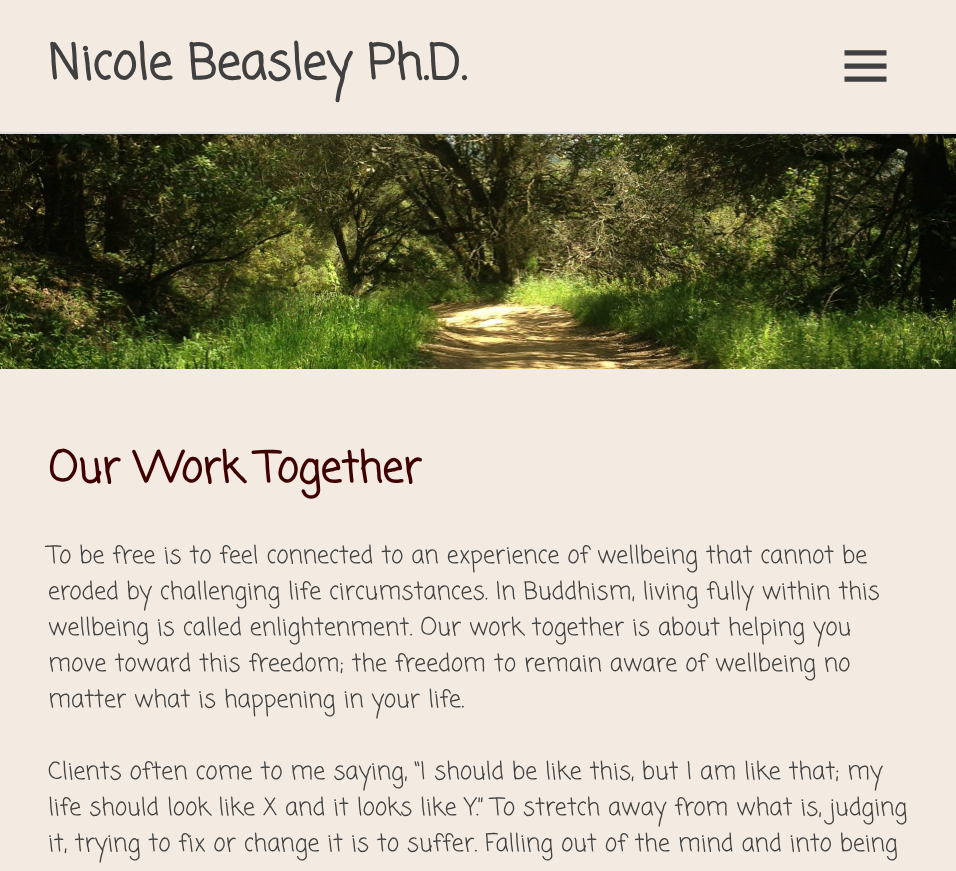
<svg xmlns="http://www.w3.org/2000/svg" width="956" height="871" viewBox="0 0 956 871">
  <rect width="100%" height="100%" fill="rgb(243,235,225)"/>
  <rect x="0" y="132" width="956" height="2" fill="rgb(221,221,221)"/>
  <text x="48" y="79" font-family="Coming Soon" font-size="48" font-weight="bold" fill="rgb(64,64,64)">Nicole Beasley Ph.D.</text>
  <image x="844" y="50" width="43" height="32" href="pic1.png"/>
  <image x="0" y="134" width="956" height="235" href="pic2.png"/>
  <text x="48" y="482" font-family="Coming Soon" font-size="42" font-weight="bold" fill="rgb(63,0,0)">Our Work Together</text>
  <g font-family="Coming Soon" font-size="24" fill="rgb(64,64,64)">
    <text>
      <tspan x="48" y="563">To be free is to feel connected to an experience of wellbeing that cannot be</tspan>
      <tspan x="48" y="599">eroded by challenging life circumstances. In Buddhism, living fully within this</tspan>
      <tspan x="48" y="635">wellbeing is called enlightenment. Our work together is about helping you</tspan>
      <tspan x="48" y="671">move toward this freedom; the freedom to remain aware of wellbeing no</tspan>
      <tspan x="48" y="707">matter what is happening in your life.</tspan>
    </text>
    <text>
      <tspan x="48" y="779">Clients often come to me saying, “I should be like this, but I am like that; my</tspan>
      <tspan x="48" y="815">life should look like X and it looks like Y.” To stretch away from what is, judging</tspan>
      <tspan x="48" y="851">it, trying to fix or change it is to suffer. Falling out of the mind and into being</tspan>
    </text>
  </g>
</svg>
